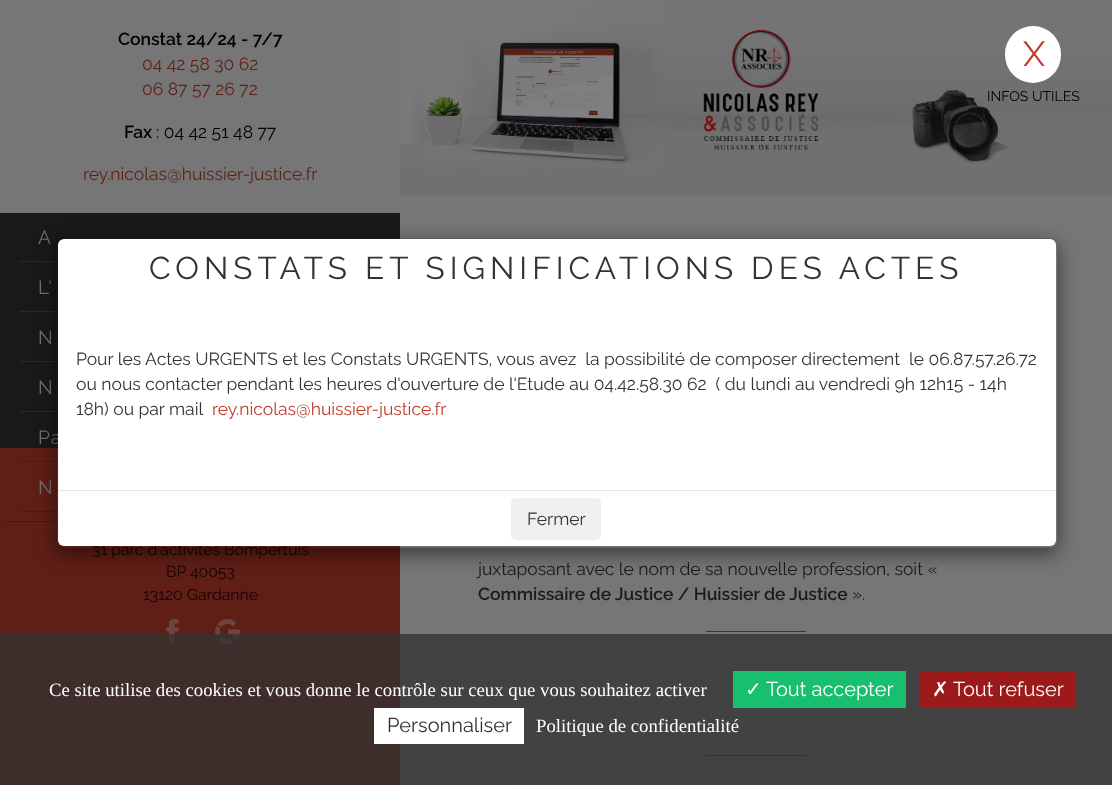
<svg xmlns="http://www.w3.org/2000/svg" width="1112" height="785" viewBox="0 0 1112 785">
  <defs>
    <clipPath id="clip1"><path d="M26 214H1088V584H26ZM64 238H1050C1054.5 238 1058 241.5 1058 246V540C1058 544.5 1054.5 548 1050 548H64C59.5 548 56 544.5 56 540V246C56 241.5 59.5 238 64 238Z" clip-rule="evenodd"/></clipPath>
  </defs>
  <rect width="100%" height="100%" fill="rgb(118,118,118)"/>
  <rect x="0" y="213" width="400" height="235" fill="rgb(25,25,25)"/>
  <text x="118" y="45" font-family="Raleway" font-size="17.5" font-weight="600" fill="rgb(0,0,0)">Constat 24/24 - 7/7</text>
  <g font-family="Raleway" font-size="17.5" fill="rgb(95,31,22)">
    <text>
      <tspan x="142" y="70">04 42 58 30 62</tspan>
      <tspan x="142" y="95">06 87 57 26 72</tspan>
    </text>
  </g>
  <text x="124" y="138" font-family="Raleway" font-size="17.5" font-weight="600" fill="rgb(0,0,0)">Fax</text>
  <text x="156" y="138" font-family="Raleway" font-size="17.5" fill="rgb(0,0,0)">: 04 42 51 48 77</text>
  <text x="83" y="180" font-family="Raleway" font-size="17.5" fill="rgb(95,31,22)">rey.nicolas@huissier-justice.fr</text>
  <text x="38" y="244" font-family="Raleway" font-size="19" letter-spacing="1" fill="rgb(112,112,112)">A</text>
  <rect x="19" y="261" width="39" height="1" fill="rgb(41,41,41)"/>
  <text x="38" y="294" font-family="Raleway" font-size="19" letter-spacing="1" fill="rgb(112,112,112)">L'</text>
  <rect x="19" y="311" width="39" height="1" fill="rgb(41,41,41)"/>
  <text x="38" y="344" font-family="Raleway" font-size="19" letter-spacing="1" fill="rgb(112,112,112)">N</text>
  <rect x="19" y="361" width="39" height="1" fill="rgb(41,41,41)"/>
  <text x="38" y="394" font-family="Raleway" font-size="19" letter-spacing="1" fill="rgb(112,112,112)">N</text>
  <rect x="19" y="411" width="39" height="1" fill="rgb(41,41,41)"/>
  <text x="38" y="444" font-family="Raleway" font-size="19" letter-spacing="1" fill="rgb(112,112,112)">Pa</text>
  <rect x="0" y="448" width="400" height="337" fill="rgb(95,31,22)"/>
  <rect x="19" y="461" width="39" height="1" fill="rgb(41,41,41)"/>
  <text x="38" y="494" font-family="Raleway" font-size="19" letter-spacing="1" fill="rgb(112,112,112)">N</text>
  <rect x="19" y="511" width="39" height="1" fill="rgb(41,41,41)"/>
  <rect x="5" y="521" width="53" height="1" fill="rgb(74,24,16)"/>
  <g font-family="Raleway" font-size="15.75" fill="rgb(23,4,1)">
    <text x="92" y="555">31 parc d'activités Bompertuis</text>
    <text x="166" y="577">BP 40053</text>
    <text x="143" y="600">13120 Gardanne</text>
  </g>
  <image x="166" y="619" width="13" height="26" href="pic1.png"/>
  <image x="215" y="619" width="25" height="26" href="pic2.png"/>
  <image x="400" y="0" width="712" height="196" href="pic3.png"/>
  <rect x="1005" y="26" width="56" height="57" rx="28" fill="rgb(255,255,255)"/>
  <text x="1023" y="66" font-family="Raleway" font-size="35" fill="rgb(189,62,43)">X</text>
  <text x="987" y="101" font-family="Raleway" font-size="14" fill="rgb(0,0,0)">INFOS UTILES</text>
  <text x="478" y="575" font-family="Raleway" font-size="17.5" fill="rgb(26,26,26)">juxtaposant avec le nom de sa nouvelle profession, soit «</text>
  <text x="478" y="600" font-family="Raleway" font-size="17.5" font-weight="600" fill="rgb(26,26,26)">Commissaire de Justice / Huissier de Justice</text>
  <text x="852" y="600" font-family="Raleway" font-size="17.5" fill="rgb(26,26,26)">».</text>
  <rect x="706" y="631" width="100" height="1" fill="rgb(54,54,54)"/>
  <rect x="706" y="755" width="100" height="1" fill="rgb(54,54,54)"/>
  <g clip-path="url(#clip1)">
    <rect x="56" y="244" width="1002" height="310" rx="8" fill="rgba(0,0,0,0.5)" filter="blur(9.5px)"/>
  </g>
  <rect x="58" y="239" width="998" height="307" rx="6" fill="rgb(255,255,255)"/>
  <rect x="56.5" y="238.5" width="1001" height="309" rx="7.5" fill="none" stroke="rgba(0,0,0,0.2)"/>
  <text x="149" y="279" font-family="Raleway" font-size="31.5" letter-spacing="5" fill="rgb(51,51,51)">CONSTATS ET SIGNIFICATIONS DES ACTES</text>
  <g font-family="Raleway" font-size="17.5" fill="rgb(51,51,51)">
    <text xml:space="preserve"><tspan x="76" y="365">Pour les Actes URGENTS et les Constats URGENTS, vous avez  la possibilité de composer directement  le 06.87.57.26.72</tspan><tspan x="76" y="390">ou nous contacter pendant les heures d'ouverture de l'Etude au 04.42.58.30 62  ( du lundi au vendredi 9h 12h15 - 14h</tspan><tspan x="76" y="415">18h) ou par mail</tspan></text>
  </g>
  <text x="212" y="415" font-family="Raleway" font-size="17.5" fill="rgb(189,62,43)">rey.nicolas@huissier-justice.fr</text>
  <rect x="58" y="490" width="998" height="1" fill="rgb(229,229,229)"/>
  <rect x="511" y="498" width="90" height="42" rx="5" fill="rgb(239,239,239)"/>
  <text x="527" y="525" font-family="Raleway" font-size="17.5" fill="rgb(51,51,51)">Fermer</text>
  <rect x="0" y="634" width="1112" height="151" fill="rgba(51,51,51,0.77)"/>
  <text x="49" y="696" font-family="Liberation Serif" font-size="18.75" fill="rgb(255,255,255)">Ce site utilise des cookies et vous donne le contrôle sur ceux que vous souhaitez activer</text>
  <rect x="733" y="671" width="173" height="37" fill="rgb(24,191,110)"/>
  <text x="745" y="696" font-family="DejaVu Sans" font-size="20" fill="rgb(255,255,255)">✓</text>
  <text x="766" y="696" font-family="Raleway" font-size="20" fill="rgb(255,255,255)">Tout accepter</text>
  <rect x="920" y="671" width="156" height="37" fill="rgb(156,26,26)"/>
  <text x="932" y="696" font-family="DejaVu Sans" font-size="20" fill="rgb(255,255,255)">✗</text>
  <text x="953" y="696" font-family="Raleway" font-size="20" fill="rgb(255,255,255)">Tout refuser</text>
  <rect x="374" y="708" width="150" height="36" fill="rgb(255,255,255)"/>
  <text x="387" y="732" font-family="Raleway" font-size="20" fill="rgb(51,51,51)">Personnaliser</text>
  <text x="536" y="732" font-family="Liberation Serif" font-size="18.75" fill="rgb(255,255,255)">Politique de confidentialité</text>
</svg>
